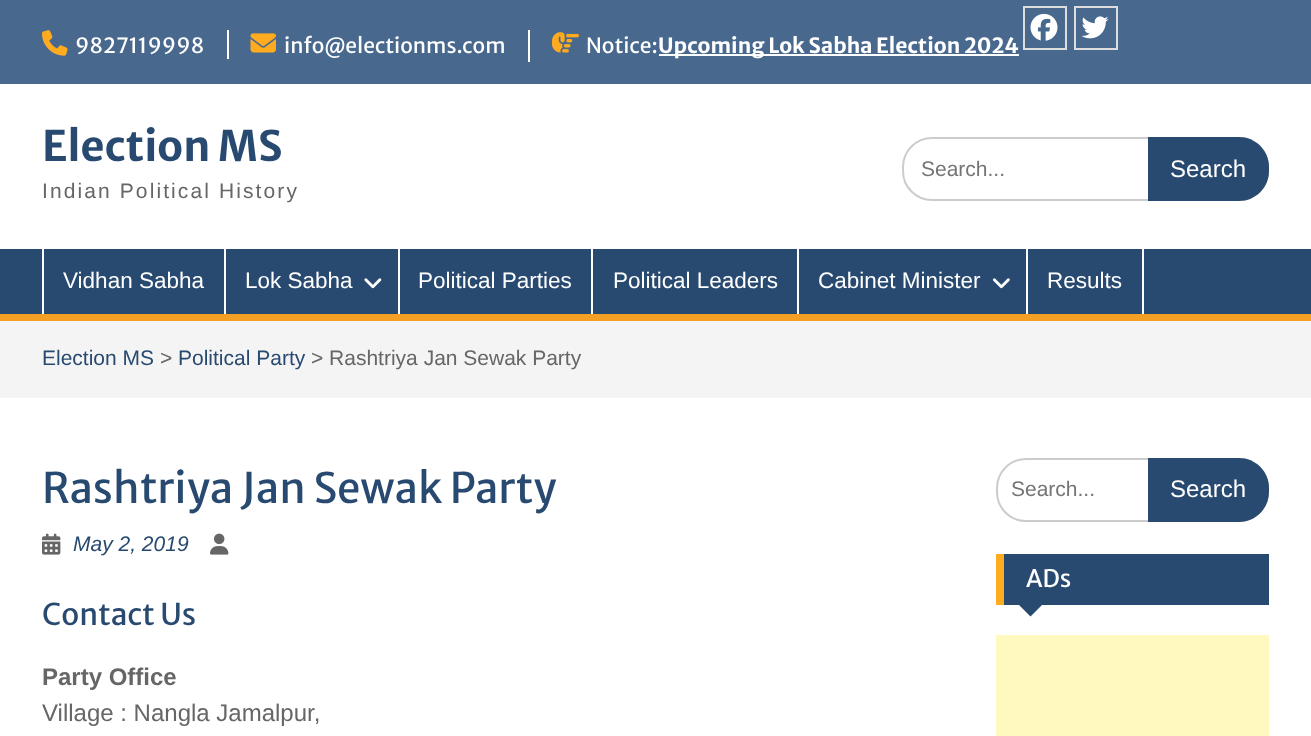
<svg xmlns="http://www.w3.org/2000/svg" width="1311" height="736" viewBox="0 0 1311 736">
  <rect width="100%" height="100%" fill="rgb(255,255,255)"/>
  <rect x="0" y="0" width="1311" height="84" fill="rgb(73,104,142)"/>
  <image x="42" y="30" width="26" height="26" href="pic1.png"/>
  <text x="75" y="53" font-family="Merriweather Sans" font-size="21" fill="rgb(255,255,255)">9827119998</text>
  <rect x="227" y="30" width="2" height="29" fill="rgb(255,255,255)"/>
  <image x="250" y="33" width="26" height="20" href="pic2.png"/>
  <text x="284" y="53" font-family="Merriweather Sans" font-size="21" fill="rgb(255,255,255)">info@electionms.com</text>
  <rect x="528" y="30" width="2" height="32" fill="rgb(255,255,255)"/>
  <image x="552" y="32" width="27" height="21" href="pic3.png"/>
  <text x="586" y="53" font-family="Merriweather Sans" font-size="21" fill="rgb(255,255,255)">Notice:</text>
  <rect x="659" y="54" width="360" height="2" fill="rgb(255,255,255)"/>
  <text x="658" y="53" font-family="Merriweather Sans" font-size="21" font-weight="bold" fill="rgb(255,255,255)">Upcoming Lok Sabha Election 2024</text>
  <rect x="1024" y="7" width="42" height="42" fill="none" stroke="rgb(221,221,221)" stroke-width="2"/>
  <image x="1030" y="13" width="28" height="28" href="pic4.png"/>
  <rect x="1075" y="7" width="42" height="42" fill="none" stroke="rgb(221,221,221)" stroke-width="2"/>
  <image x="1081" y="16" width="28" height="23" href="pic5.png"/>
  <text x="42" y="161" font-family="Merriweather Sans" font-size="42" font-weight="bold" fill="rgb(41,74,112)">Election MS</text>
  <text x="42" y="198" font-family="Liberation Sans" font-size="21" letter-spacing="2.1" fill="rgb(102,102,102)">Indian Political History</text>
  <rect x="903" y="138" width="365" height="62" rx="29" fill="none" stroke="rgb(204,204,204)" stroke-width="2"/>
  <text x="921" y="176" font-family="Liberation Sans" font-size="21" fill="rgb(117,117,117)">Search...</text>
  <path d="M1148 137H1239C1255.5 137 1269 150.5 1269 167V171C1269 187.5 1255.5 201 1239 201H1148Z" fill="rgb(41,74,112)"/>
  <text x="1170" y="177" font-family="Liberation Sans" font-size="24" fill="rgb(255,255,255)">Search</text>
  <rect x="0" y="249" width="1311" height="65" fill="rgb(41,74,112)"/>
  <rect x="0" y="314" width="1311" height="7" fill="rgb(244,160,36)"/>
  <rect x="224" y="249" width="2" height="65" fill="rgb(255,255,255)"/>
  <rect x="42" y="249" width="2" height="65" fill="rgb(255,255,255)"/>
  <text x="63" y="288" font-family="Liberation Sans" font-size="22.5" fill="rgb(255,255,255)">Vidhan Sabha</text>
  <rect x="398" y="249" width="2" height="65" fill="rgb(255,255,255)"/>
  <text x="245" y="288" font-family="Liberation Sans" font-size="22.5" fill="rgb(255,255,255)">Lok Sabha</text>
  <image x="364" y="278" width="18" height="11" href="pic6.png"/>
  <rect x="591" y="249" width="2" height="65" fill="rgb(255,255,255)"/>
  <text x="418" y="288" font-family="Liberation Sans" font-size="22.5" fill="rgb(255,255,255)">Political Parties</text>
  <rect x="797" y="249" width="2" height="65" fill="rgb(255,255,255)"/>
  <text x="613" y="288" font-family="Liberation Sans" font-size="22.5" fill="rgb(255,255,255)">Political Leaders</text>
  <rect x="1026" y="249" width="2" height="65" fill="rgb(255,255,255)"/>
  <text x="818" y="288" font-family="Liberation Sans" font-size="22.5" fill="rgb(255,255,255)">Cabinet Minister</text>
  <image x="992" y="278" width="18" height="11" href="pic7.png"/>
  <rect x="1142" y="249" width="2" height="65" fill="rgb(255,255,255)"/>
  <text x="1047" y="288" font-family="Liberation Sans" font-size="22.5" fill="rgb(255,255,255)">Results</text>
  <rect x="0" y="321" width="1311" height="77" fill="rgb(244,244,244)"/>
  <text x="42" y="365" font-family="Liberation Sans" font-size="21" fill="rgb(41,74,112)">Election MS</text>
  <text x="160" y="365" font-family="Liberation Sans" font-size="21" fill="rgb(102,102,102)">&gt;</text>
  <text x="178" y="365" font-family="Liberation Sans" font-size="21" fill="rgb(41,74,112)">Political Party</text>
  <text x="311" y="365" font-family="Liberation Sans" font-size="21" fill="rgb(102,102,102)">&gt; Rashtriya Jan Sewak Party</text>
  <text x="42" y="503" font-family="Merriweather Sans" font-size="42" fill="rgb(41,74,112)">Rashtriya Jan Sewak Party</text>
  <image x="42" y="533" width="19" height="22" href="pic8.png"/>
  <text x="73" y="551" font-family="Liberation Sans" font-size="21" font-style="italic" fill="rgb(41,74,112)">May 2, 2019</text>
  <image x="210" y="533" width="19" height="22" href="pic9.png"/>
  <text x="42" y="625" font-family="Merriweather Sans" font-size="30" fill="rgb(41,74,112)">Contact Us</text>
  <text x="42" y="685" font-family="Liberation Sans" font-size="24" font-weight="bold" fill="rgb(102,102,102)">Party Office</text>
  <text x="42" y="721" font-family="Liberation Sans" font-size="24" fill="rgb(102,102,102)">Village : Nangla Jamalpur,</text>
  <rect x="997" y="459" width="271" height="62" rx="29" fill="none" stroke="rgb(204,204,204)" stroke-width="2"/>
  <text x="1011" y="496" font-family="Liberation Sans" font-size="21" fill="rgb(117,117,117)">Search...</text>
  <path d="M1148 458H1239C1255.5 458 1269 471.5 1269 488V492C1269 508.5 1255.5 522 1239 522H1148Z" fill="rgb(41,74,112)"/>
  <text x="1170" y="497" font-family="Liberation Sans" font-size="24" fill="rgb(255,255,255)">Search</text>
  <rect x="1004" y="554" width="265" height="51" fill="rgb(41,74,112)"/>
  <rect x="996" y="554" width="8" height="51" fill="rgb(255,171,31)"/>
  <text x="1026" y="587" font-family="Merriweather Sans" font-size="24" fill="rgb(255,255,255)">ADs</text>
  <path d="M1017 603H1044L1030.5 616.5Z" fill="rgb(41,74,112)"/>
  <rect x="996" y="635" width="273" height="101" fill="rgb(255,249,192)"/>
</svg>
